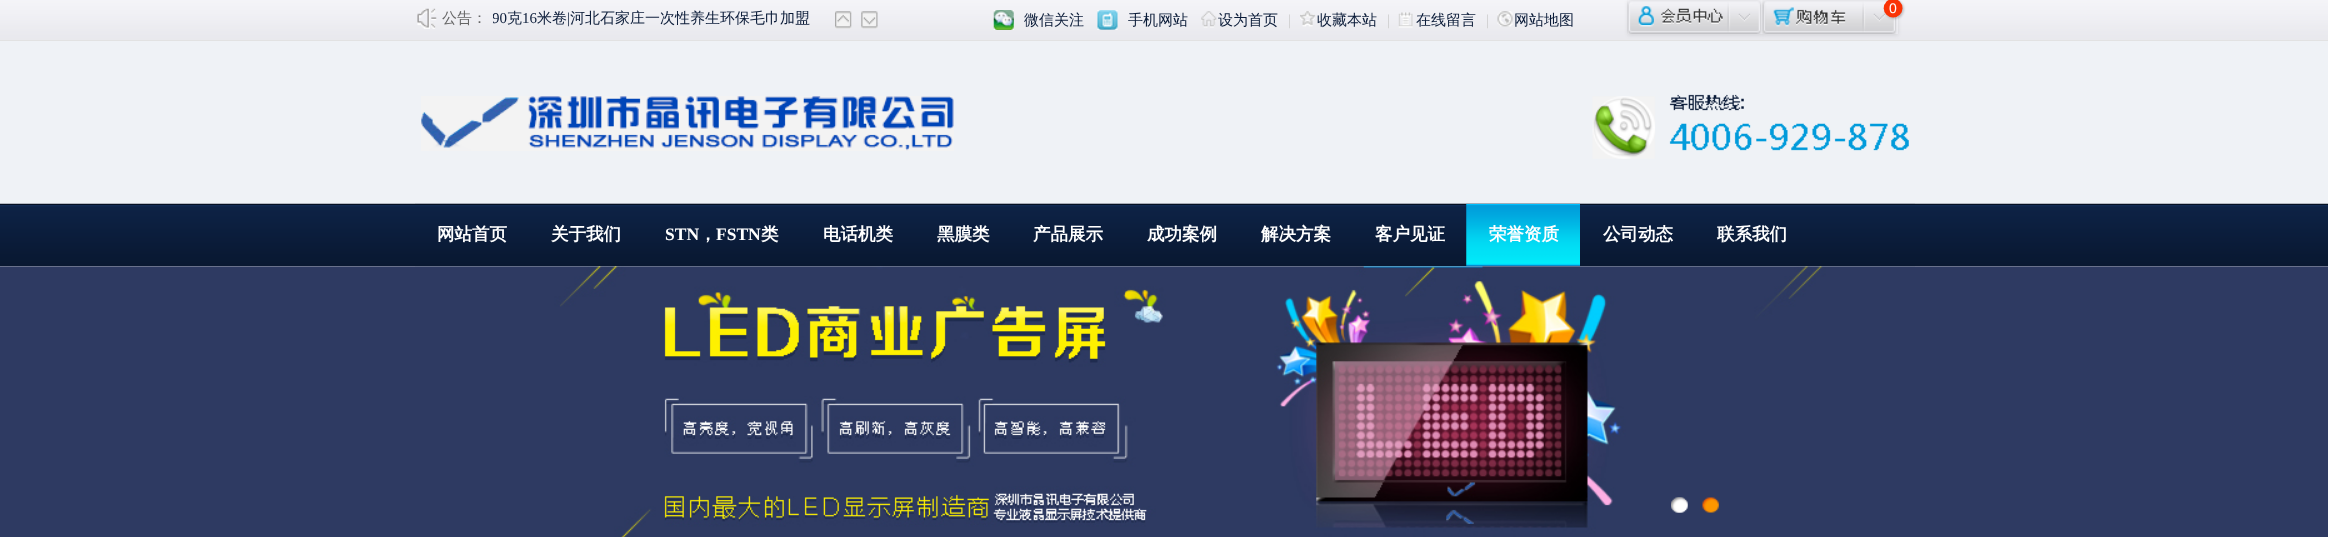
<svg xmlns="http://www.w3.org/2000/svg" width="2328" height="537" viewBox="0 0 2328 537">
  <defs>
    <clipPath id="clip1"><rect x="493" y="8" width="325" height="20"/></clipPath>
    <clipPath id="clip2"><path d="M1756 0H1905V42H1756ZM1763 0H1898V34H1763Z" clip-rule="evenodd"/></clipPath>
    <clipPath id="clip3"><path d="M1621 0H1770V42H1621ZM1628 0H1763V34H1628Z" clip-rule="evenodd"/></clipPath>
  </defs>
  <rect width="100%" height="100%" fill="rgb(239,242,246)"/>
  <image x="0" y="0" width="2328" height="40" href="pic1.png"/>
  <rect x="0" y="40" width="2328" height="1" fill="rgb(226,226,226)"/>
  <image x="417" y="8" width="20" height="21" href="pic2.png"/>
  <text x="442" y="23" font-family="WenQuanYi Zen Hei" font-size="15" font-weight="500" fill="rgb(102,102,102)">公告：</text>
  <g clip-path="url(#clip1)">
    <text x="492" y="23" font-family="Liberation Serif" font-size="15" fill="rgb(10,27,56)">90</text>
  </g>
  <text x="507" y="23" font-family="WenQuanYi Zen Hei" font-size="15" font-weight="500" fill="rgb(10,27,56)">克</text>
  <text x="522" y="23" font-family="Liberation Serif" font-size="15" fill="rgb(10,27,56)">16</text>
  <text x="537" y="23" font-family="WenQuanYi Zen Hei" font-size="15" font-weight="500" fill="rgb(10,27,56)">米卷</text>
  <text x="567" y="23" font-family="Liberation Serif" font-size="15" fill="rgb(10,27,56)">|</text>
  <text x="570" y="23" font-family="WenQuanYi Zen Hei" font-size="15" font-weight="500" fill="rgb(10,27,56)">河北石家庄一次性养生环保毛巾加盟</text>
  <image x="835" y="11" width="17" height="18" href="pic3.png"/>
  <image x="861" y="11" width="17" height="18" href="pic4.png"/>
  <image x="1762" y="0" width="135" height="34" href="pic6.png"/>
  <g clip-path="url(#clip2)">
    <rect x="1763" y="1" width="135" height="34" fill="rgba(0,0,0,0.1)" filter="blur(2px)"/>
  </g>
  <image x="1627" y="0" width="135" height="34" href="pic5.png"/>
  <g clip-path="url(#clip3)">
    <rect x="1628" y="1" width="135" height="34" fill="rgba(0,0,0,0.1)" filter="blur(2px)"/>
  </g>
  <rect x="1885" y="0" width="19" height="19" rx="9.5" fill="rgba(0,0,0,0.2)" filter="blur(1px)"/>
  <image x="1883" y="0" width="20" height="18" href="pic7.png"/>
  <text x="1889" y="13" font-family="Liberation Sans" font-size="14" fill="rgb(255,255,255)">0</text>
  <image x="993" y="10" width="21" height="20" href="pic8.png"/>
  <text x="1024" y="25" font-family="WenQuanYi Zen Hei" font-size="15" font-weight="500" fill="rgb(10,27,56)">微信关注</text>
  <image x="1097" y="10" width="21" height="20" href="pic9.png"/>
  <text x="1128" y="25" font-family="WenQuanYi Zen Hei" font-size="15" font-weight="500" fill="rgb(10,27,56)">手机网站</text>
  <image x="1201" y="11" width="16" height="17" href="pic10.png"/>
  <text x="1218" y="25" font-family="WenQuanYi Zen Hei" font-size="15" font-weight="500" fill="rgb(10,27,56)">设为首页</text>
  <text x="1288" y="25" font-family="Liberation Serif" font-size="15" fill="rgb(204,204,204)">|</text>
  <image x="1300" y="11" width="16" height="16" href="pic11.png"/>
  <text x="1317" y="25" font-family="WenQuanYi Zen Hei" font-size="15" font-weight="500" fill="rgb(10,27,56)">收藏本站</text>
  <text x="1387" y="25" font-family="Liberation Serif" font-size="15" fill="rgb(204,204,204)">|</text>
  <image x="1398" y="12" width="15" height="16" href="pic12.png"/>
  <text x="1416" y="25" font-family="WenQuanYi Zen Hei" font-size="15" font-weight="500" fill="rgb(10,27,56)">在线留言</text>
  <text x="1486" y="25" font-family="Liberation Serif" font-size="15" fill="rgb(204,204,204)">|</text>
  <image x="1497" y="11" width="16" height="16" href="pic13.png"/>
  <text x="1514" y="25" font-family="WenQuanYi Zen Hei" font-size="15" font-weight="500" fill="rgb(10,27,56)">网站地图</text>
  <image x="421" y="96" width="533" height="55" href="pic14.png"/>
  <image x="1592" y="94" width="317" height="65" href="pic15.png"/>
  <image x="0" y="203" width="2328" height="64" href="pic16.png"/>
  <image x="415" y="203" width="1500" height="64" href="pic17.png"/>
  <g font-family="WenQuanYi Zen Hei" font-size="17.5" font-weight="bold" fill="rgb(255,255,255)">
    <text x="437" y="240">网站首页</text>
    <text x="551" y="240">关于我们</text>
  </g>
  <text x="665" y="240" font-family="Liberation Serif" font-size="17.5" font-weight="bold" fill="rgb(255,255,255)">STN</text>
  <text x="699" y="240" font-family="WenQuanYi Zen Hei" font-size="17.5" font-weight="bold" fill="rgb(255,255,255)">，</text>
  <text x="716" y="240" font-family="Liberation Serif" font-size="17.5" font-weight="bold" fill="rgb(255,255,255)">FSTN</text>
  <g font-family="WenQuanYi Zen Hei" font-size="17.5" font-weight="bold" fill="rgb(255,255,255)">
    <text x="761" y="240">类</text>
    <text x="823" y="240">电话机类</text>
    <text x="937" y="240">黑膜类</text>
    <text x="1033" y="240">产品展示</text>
    <text x="1147" y="240">成功案例</text>
    <text x="1261" y="240">解决方案</text>
    <text x="1375" y="240">客户见证</text>
  </g>
  <image x="1466" y="203" width="114" height="64" href="pic18.png"/>
  <g font-family="WenQuanYi Zen Hei" font-size="17.5" font-weight="bold" fill="rgb(255,255,255)">
    <text x="1489" y="240">荣誉资质</text>
    <text x="1603" y="240">公司动态</text>
    <text x="1717" y="240">联系我们</text>
  </g>
  <image x="0" y="266" width="2328" height="271" href="pic19.png"/>
  <image x="1671" y="497" width="17" height="16" href="pic20.png"/>
  <image x="1671" y="497" width="17" height="16" href="pic21.png"/>
  <image x="1702" y="497" width="17" height="16" href="pic22.png"/>
</svg>
